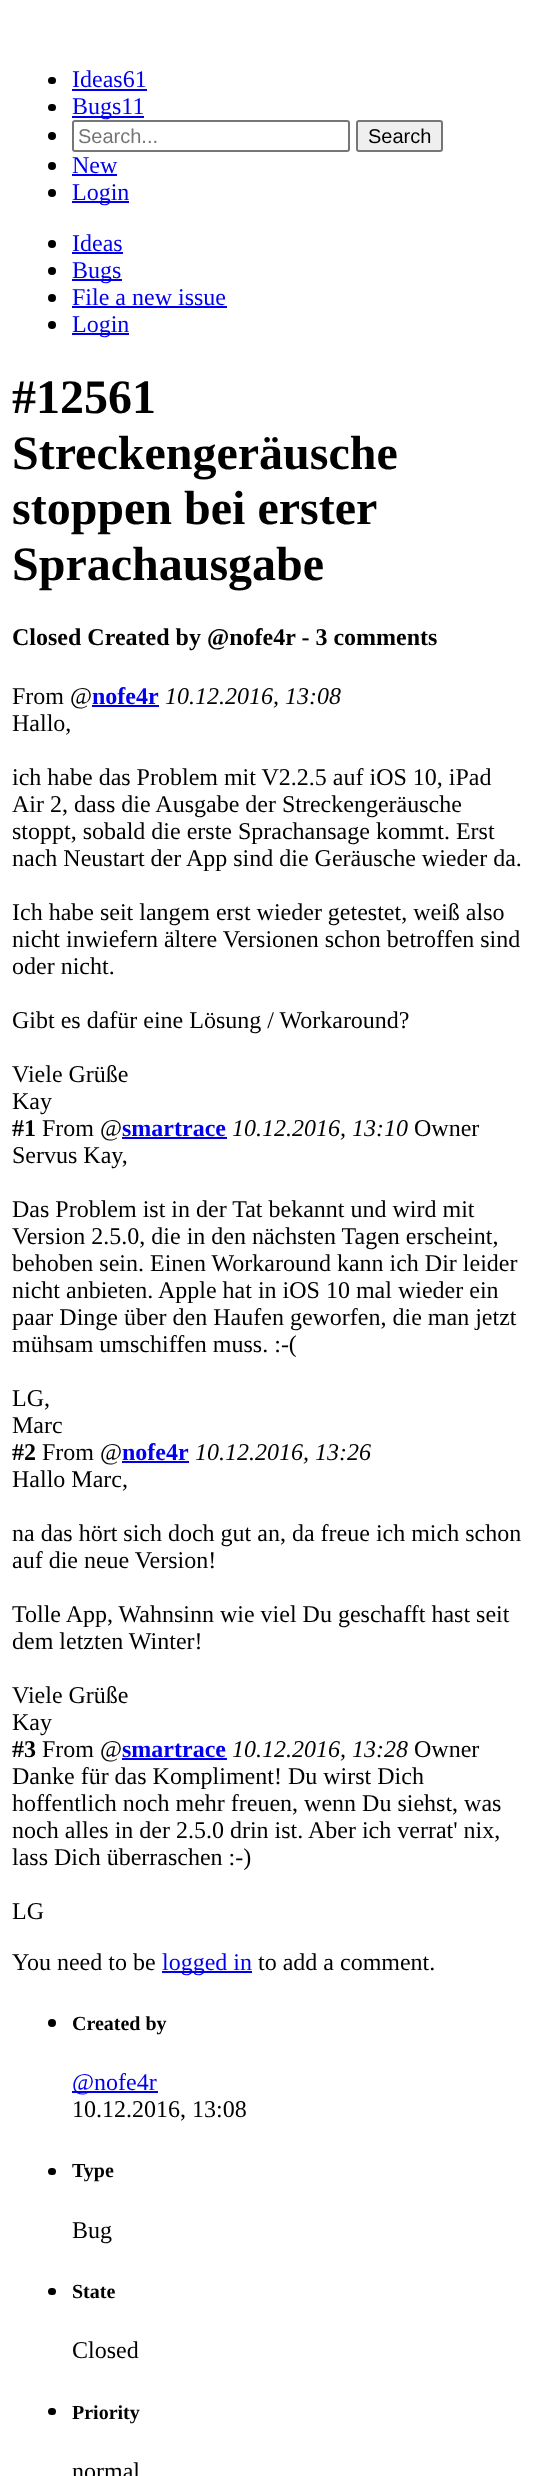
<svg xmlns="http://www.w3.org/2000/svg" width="539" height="2476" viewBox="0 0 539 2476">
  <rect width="100%" height="100%" fill="rgb(255,255,255)"/>
  <rect x="48" y="77" width="8" height="7" rx="3.5" fill="rgb(0,0,0)"/>
  <text x="72" y="87" font-family="Liberation Serif" font-size="24" fill="rgb(0,0,238)">Ideas61</text>
  <rect x="72" y="89" width="75" height="2" fill="rgb(0,0,238)"/>
  <rect x="48" y="104" width="8" height="7" rx="3.5" fill="rgb(0,0,0)"/>
  <rect x="72" y="116" width="72" height="2" fill="rgb(0,0,238)"/>
  <text x="72" y="114" font-family="Liberation Serif" font-size="24" fill="rgb(0,0,238)">Bugs11</text>
  <circle cx="52" cy="136" r="4" fill="rgb(0,0,0)"/>
  <rect x="73" y="121" width="276" height="30" rx="2" fill="none" stroke="rgb(118,118,118)" stroke-width="2"/>
  <text x="78" y="143" font-family="Liberation Sans" font-size="20" fill="rgb(117,117,117)">Search...</text>
  <rect x="357" y="121" width="85" height="30" rx="2" fill="rgb(239,239,239)" stroke="rgb(118,118,118)" stroke-width="2"/>
  <text x="368" y="143" font-family="Liberation Sans" font-size="20" fill="rgb(0,0,0)">Search</text>
  <circle cx="52" cy="166" r="4" fill="rgb(0,0,0)"/>
  <text x="72" y="173" font-family="Liberation Serif" font-size="24" fill="rgb(0,0,238)">New</text>
  <rect x="72" y="174" width="45" height="2" fill="rgb(0,0,238)"/>
  <circle cx="52" cy="193" r="4" fill="rgb(0,0,0)"/>
  <rect x="72" y="201" width="57" height="2" fill="rgb(0,0,238)"/>
  <text x="72" y="200" font-family="Liberation Serif" font-size="24" fill="rgb(0,0,238)">Login</text>
  <circle cx="52" cy="244" r="4" fill="rgb(0,0,0)"/>
  <text x="72" y="251" font-family="Liberation Serif" font-size="24" fill="rgb(0,0,238)">Ideas</text>
  <rect x="72" y="252" width="51" height="2" fill="rgb(0,0,238)"/>
  <circle cx="52" cy="271" r="4" fill="rgb(0,0,0)"/>
  <rect x="72" y="279" width="50" height="2" fill="rgb(0,0,238)"/>
  <text x="72" y="278" font-family="Liberation Serif" font-size="24" fill="rgb(0,0,238)">Bugs</text>
  <circle cx="52" cy="298" r="4" fill="rgb(0,0,0)"/>
  <text x="72" y="305" font-family="Liberation Serif" font-size="24" fill="rgb(0,0,238)">File a new issue</text>
  <rect x="72" y="306" width="155" height="2" fill="rgb(0,0,238)"/>
  <circle cx="52" cy="325" r="4" fill="rgb(0,0,0)"/>
  <rect x="72" y="333" width="57" height="2" fill="rgb(0,0,238)"/>
  <text x="72" y="332" font-family="Liberation Serif" font-size="24" fill="rgb(0,0,238)">Login</text>
  <g font-family="Liberation Serif" font-size="48" font-weight="bold" fill="rgb(0,0,0)">
    <text>
      <tspan x="12" y="413">#12561</tspan>
      <tspan x="12" y="469">Streckengeräusche</tspan>
      <tspan x="12" y="524">stoppen bei erster</tspan>
      <tspan x="12" y="580">Sprachausgabe</tspan>
    </text>
  </g>
  <text x="12" y="645" font-family="Liberation Serif" font-size="24" font-weight="bold" fill="rgb(0,0,0)">Closed Created by @nofe4r - 3 comments</text>
  <text x="12" y="704" font-family="Liberation Serif" font-size="24" fill="rgb(0,0,0)">From @</text>
  <rect x="92" y="705" width="67" height="2" fill="rgb(0,0,238)"/>
  <text x="92" y="704" font-family="Liberation Serif" font-size="24" font-weight="bold" fill="rgb(0,0,238)">nofe4r</text>
  <text x="165" y="704" font-family="Liberation Serif" font-size="24" font-style="italic" fill="rgb(0,0,0)">10.12.2016, 13:08</text>
  <g font-family="Liberation Serif" font-size="24" fill="rgb(0,0,0)">
    <text x="12" y="731">Hallo,</text>
    <text>
      <tspan x="12" y="785">ich habe das Problem mit V2.2.5 auf iOS 10, iPad</tspan>
      <tspan x="12" y="812">Air 2, dass die Ausgabe der Streckengeräusche</tspan>
      <tspan x="12" y="839">stoppt, sobald die erste Sprachansage kommt. Erst</tspan>
      <tspan x="12" y="866">nach Neustart der App sind die Geräusche wieder da.</tspan>
    </text>
    <text>
      <tspan x="12" y="920">Ich habe seit langem erst wieder getestet, weiß also</tspan>
      <tspan x="12" y="947">nicht inwiefern ältere Versionen schon betroffen sind</tspan>
      <tspan x="12" y="974">oder nicht.</tspan>
    </text>
    <text x="12" y="1028">Gibt es dafür eine Lösung / Workaround?</text>
    <text>
      <tspan x="12" y="1082">Viele Grüße</tspan>
      <tspan x="12" y="1109">Kay</tspan>
    </text>
  </g>
  <text x="12" y="1136" font-family="Liberation Serif" font-size="24" font-weight="bold" fill="rgb(0,0,0)">#1</text>
  <text x="42" y="1136" font-family="Liberation Serif" font-size="24" fill="rgb(0,0,0)">From @</text>
  <rect x="122" y="1137" width="105" height="2" fill="rgb(0,0,238)"/>
  <text x="122" y="1136" font-family="Liberation Serif" font-size="24" font-weight="bold" fill="rgb(0,0,238)">smartrace</text>
  <text x="232" y="1136" font-family="Liberation Serif" font-size="24" font-style="italic" fill="rgb(0,0,0)">10.12.2016, 13:10</text>
  <g font-family="Liberation Serif" font-size="24" fill="rgb(0,0,0)">
    <text x="414" y="1136">Owner</text>
    <text x="12" y="1163">Servus Kay,</text>
    <text>
      <tspan x="12" y="1217">Das Problem ist in der Tat bekannt und wird mit</tspan>
      <tspan x="12" y="1244">Version 2.5.0, die in den nächsten Tagen erscheint,</tspan>
      <tspan x="12" y="1271">behoben sein. Einen Workaround kann ich Dir leider</tspan>
      <tspan x="12" y="1298">nicht anbieten. Apple hat in iOS 10 mal wieder ein</tspan>
      <tspan x="12" y="1325">paar Dinge über den Haufen geworfen, die man jetzt</tspan>
      <tspan x="12" y="1352">mühsam umschiffen muss. :-(</tspan>
    </text>
    <text>
      <tspan x="12" y="1406">LG,</tspan>
      <tspan x="12" y="1433">Marc</tspan>
    </text>
  </g>
  <text x="12" y="1460" font-family="Liberation Serif" font-size="24" font-weight="bold" fill="rgb(0,0,0)">#2</text>
  <text x="42" y="1460" font-family="Liberation Serif" font-size="24" fill="rgb(0,0,0)">From @</text>
  <rect x="122" y="1461" width="67" height="2" fill="rgb(0,0,238)"/>
  <text x="122" y="1460" font-family="Liberation Serif" font-size="24" font-weight="bold" fill="rgb(0,0,238)">nofe4r</text>
  <text x="195" y="1460" font-family="Liberation Serif" font-size="24" font-style="italic" fill="rgb(0,0,0)">10.12.2016, 13:26</text>
  <g font-family="Liberation Serif" font-size="24" fill="rgb(0,0,0)">
    <text x="12" y="1487">Hallo Marc,</text>
    <text>
      <tspan x="12" y="1541">na das hört sich doch gut an, da freue ich mich schon</tspan>
      <tspan x="12" y="1568">auf die neue Version!</tspan>
    </text>
    <text>
      <tspan x="12" y="1622">Tolle App, Wahnsinn wie viel Du geschafft hast seit</tspan>
      <tspan x="12" y="1649">dem letzten Winter!</tspan>
    </text>
    <text>
      <tspan x="12" y="1703">Viele Grüße</tspan>
      <tspan x="12" y="1730">Kay</tspan>
    </text>
  </g>
  <text x="12" y="1757" font-family="Liberation Serif" font-size="24" font-weight="bold" fill="rgb(0,0,0)">#3</text>
  <text x="42" y="1757" font-family="Liberation Serif" font-size="24" fill="rgb(0,0,0)">From @</text>
  <rect x="122" y="1758" width="105" height="2" fill="rgb(0,0,238)"/>
  <text x="122" y="1757" font-family="Liberation Serif" font-size="24" font-weight="bold" fill="rgb(0,0,238)">smartrace</text>
  <text x="232" y="1757" font-family="Liberation Serif" font-size="24" font-style="italic" fill="rgb(0,0,0)">10.12.2016, 13:28</text>
  <g font-family="Liberation Serif" font-size="24" fill="rgb(0,0,0)">
    <text x="414" y="1757">Owner</text>
    <text>
      <tspan x="12" y="1784">Danke für das Kompliment! Du wirst Dich</tspan>
      <tspan x="12" y="1811">hoffentlich noch mehr freuen, wenn Du siehst, was</tspan>
      <tspan x="12" y="1838">noch alles in der 2.5.0 drin ist. Aber ich verrat' nix,</tspan>
      <tspan x="12" y="1865">lass Dich überraschen :-)</tspan>
    </text>
    <text x="12" y="1919">LG</text>
    <text x="12" y="1970">You need to be</text>
  </g>
  <rect x="162" y="1971" width="90" height="2" fill="rgb(0,0,238)"/>
  <text x="162" y="1970" font-family="Liberation Serif" font-size="24" fill="rgb(0,0,238)">logged in</text>
  <text x="258" y="1970" font-family="Liberation Serif" font-size="24" fill="rgb(0,0,0)">to add a comment.</text>
  <circle cx="52" cy="2023" r="4" fill="rgb(0,0,0)"/>
  <text x="72" y="2030" font-family="Liberation Serif" font-size="20" font-weight="bold" fill="rgb(0,0,0)">Created by</text>
  <rect x="72" y="2091" width="86" height="2" fill="rgb(0,0,238)"/>
  <text x="72" y="2090" font-family="Liberation Serif" font-size="24" fill="rgb(0,0,238)">@nofe4r</text>
  <text x="72" y="2117" font-family="Liberation Serif" font-size="24" fill="rgb(0,0,0)">10.12.2016, 13:08</text>
  <rect x="48" y="2168" width="8" height="7" rx="3.5" fill="rgb(0,0,0)"/>
  <text x="72" y="2177" font-family="Liberation Serif" font-size="20" font-weight="bold" fill="rgb(0,0,0)">Type</text>
  <text x="72" y="2238" font-family="Liberation Serif" font-size="24" fill="rgb(0,0,0)">Bug</text>
  <rect x="48" y="2288" width="8" height="7" rx="3.5" fill="rgb(0,0,0)"/>
  <text x="72" y="2298" font-family="Liberation Serif" font-size="20" font-weight="bold" fill="rgb(0,0,0)">State</text>
  <text x="72" y="2358" font-family="Liberation Serif" font-size="24" fill="rgb(0,0,0)">Closed</text>
  <rect x="48" y="2408" width="8" height="7" rx="3.5" fill="rgb(0,0,0)"/>
  <text x="72" y="2419" font-family="Liberation Serif" font-size="20" font-weight="bold" fill="rgb(0,0,0)">Priority</text>
  <text x="72" y="2479" font-family="Liberation Serif" font-size="24" fill="rgb(0,0,0)">normal</text>
</svg>
